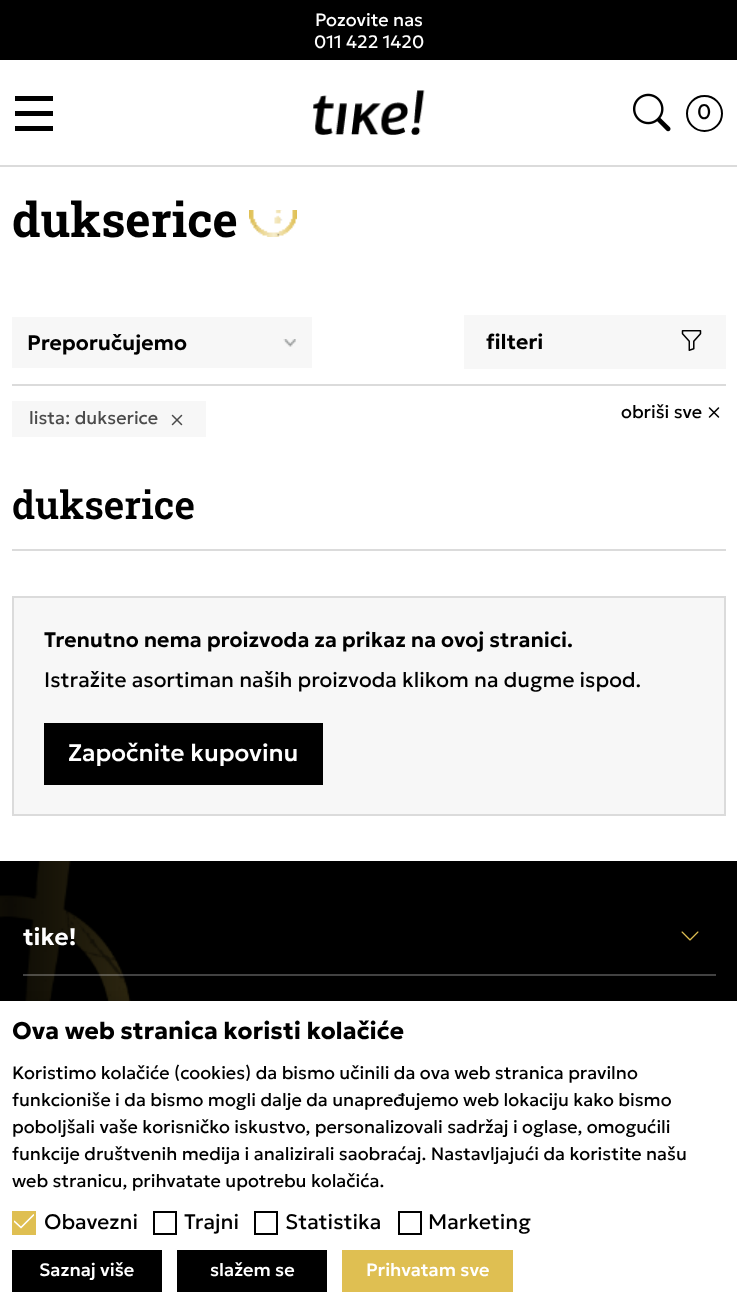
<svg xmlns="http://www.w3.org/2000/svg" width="737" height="1306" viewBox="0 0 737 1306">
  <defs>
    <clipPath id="clip1"><rect x="23" y="921" width="693" height="30"/></clipPath>
  </defs>
  <rect width="100%" height="100%" fill="rgb(255,255,255)"/>
  <rect x="0" y="165" width="737" height="2" fill="rgb(219,219,219)"/>
  <rect x="0" y="0" width="737" height="60" fill="rgb(0,0,0)"/>
  <g font-family="Geologica" font-size="18" fill="rgb(255,255,255)">
    <text x="315" y="26">Pozovite nas</text>
    <text x="314" y="48">011 422 1420</text>
  </g>
  <rect x="15" y="111" width="38" height="5" fill="rgb(0,0,0)"/>
  <rect x="15" y="96" width="38" height="5" fill="rgb(0,0,0)"/>
  <rect x="15" y="126" width="38" height="5" fill="rgb(0,0,0)"/>
  <image x="313" y="90" width="112" height="45" href="pic1.png"/>
  <image x="632" y="93" width="39" height="39" href="pic2.png"/>
  <circle cx="704.5" cy="113.5" r="17.5" fill="none" stroke="rgb(0,0,0)" stroke-width="2"/>
  <text x="697" y="119" font-family="Geologica" font-size="21" fill="rgb(0,0,0)">0</text>
  <text x="12" y="237" font-family="Roboto Slab" font-size="48" font-weight="bold" fill="rgb(0,0,0)">dukserice</text>
  <image x="249" y="210" width="48" height="27" href="pic3.png"/>
  <rect x="12" y="384" width="714" height="2" fill="rgb(219,219,219)"/>
  <rect x="12" y="317" width="300" height="51" fill="rgb(247,247,247)"/>
  <image x="283" y="339" width="13" height="8" href="pic4.png"/>
  <text x="27" y="350" font-family="Geologica" font-size="21" font-weight="600" fill="rgb(0,0,0)">Preporučujemo</text>
  <rect x="464" y="315" width="262" height="54" fill="rgb(247,247,247)"/>
  <text x="486" y="349" font-family="Geologica" font-size="21" font-weight="600" fill="rgb(0,0,0)">filteri</text>
  <image x="681" y="330" width="21" height="21" href="pic5.png"/>
  <rect x="12" y="401" width="194" height="36" fill="rgb(247,247,247)"/>
  <text x="29" y="424" font-family="Geologica" font-size="18" fill="rgb(75,75,75)">lista: dukserice</text>
  <image x="171" y="414" width="12" height="12" href="pic6.png"/>
  <text x="621" y="418" font-family="Geologica" font-size="18" fill="rgb(0,0,0)">obriši sve</text>
  <image x="708" y="407" width="12" height="11" href="pic7.png"/>
  <rect x="12" y="549" width="714" height="2" fill="rgb(219,219,219)"/>
  <text x="12" y="519" font-family="Roboto Slab" font-size="39" font-weight="600" fill="rgb(0,0,0)">dukserice</text>
  <rect x="13" y="597" width="712" height="218" fill="rgb(247,247,247)" stroke="rgb(219,219,219)" stroke-width="2"/>
  <text x="44" y="647" font-family="Geologica" font-size="21" font-weight="600" fill="rgb(0,0,0)">Trenutno nema proizvoda za prikaz na ovoj stranici.</text>
  <text x="44" y="687" font-family="Geologica" font-size="21" fill="rgb(0,0,0)">Istražite asortiman naših proizvoda klikom na dugme ispod.</text>
  <rect x="44" y="723" width="279" height="62" fill="rgb(0,0,0)"/>
  <text x="68" y="761" font-family="Geologica" font-size="24" font-weight="500" fill="rgb(255,255,255)">Započnite kupovinu</text>
  <rect x="0" y="861" width="737" height="140" fill="rgb(0,0,0)"/>
  <image x="0" y="861" width="131" height="140" href="pic8.png"/>
  <rect x="23" y="974" width="693" height="2" fill="rgba(219,219,219,0.3)"/>
  <g clip-path="url(#clip1)">
    <text x="23" y="945" font-family="Geologica" font-size="24" font-weight="600" fill="rgb(255,255,255)">tike!</text>
  </g>
  <image x="681" y="931" width="18" height="10" href="pic9.png"/>
  <rect x="0" y="999" width="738" height="306" fill="rgba(0,0,0,0.1)" filter="blur(4.5px)"/>
  <rect x="0" y="1001" width="737" height="305" fill="rgb(255,255,255)"/>
  <text x="12" y="1039" font-family="Geologica" font-size="24" font-weight="bold" fill="rgb(0,0,0)">Ova web stranica koristi kolačiće</text>
  <g font-family="Geologica" font-size="18" fill="rgb(0,0,0)">
    <text>
      <tspan x="12" y="1079">Koristimo kolačiće (cookies) da bismo učinili da ova web stranica pravilno</tspan>
      <tspan x="12" y="1106">funkcioniše i da bismo mogli dalje da unapređujemo web lokaciju kako bismo</tspan>
      <tspan x="12" y="1133">poboljšali vaše korisničko iskustvo, personalizovali sadržaj i oglase, omogućili</tspan>
      <tspan x="12" y="1160">funkcije društvenih medija i analizirali saobraćaj. Nastavljajući da koristite našu</tspan>
      <tspan x="12" y="1187">web stranicu, prihvatate upotrebu kolačića.</tspan>
    </text>
  </g>
  <rect x="14" y="1213" width="20" height="20" fill="rgb(223,191,82)"/>
  <path d="M14.5 1221.5L21 1227.5M21 1227.5L33.5 1215" fill="none" stroke="rgb(255,255,255)" stroke-width="1.7" stroke-linecap="round"/>
  <rect x="13" y="1212" width="22" height="22" fill="none" stroke="rgb(223,191,82)" stroke-width="2"/>
  <text x="44" y="1229" font-family="Geologica" font-size="21" fill="rgb(0,0,0)">Obavezni</text>
  <rect x="154" y="1212" width="22" height="22" fill="none" stroke="rgb(0,0,0)" stroke-width="2"/>
  <text x="184" y="1229" font-family="Geologica" font-size="21" fill="rgb(0,0,0)">Trajni</text>
  <rect x="255" y="1212" width="22" height="22" fill="none" stroke="rgb(0,0,0)" stroke-width="2"/>
  <text x="285" y="1229" font-family="Geologica" font-size="21" fill="rgb(0,0,0)">Statistika</text>
  <rect x="399" y="1212" width="22" height="22" fill="none" stroke="rgb(0,0,0)" stroke-width="2"/>
  <text x="428" y="1229" font-family="Geologica" font-size="21" fill="rgb(0,0,0)">Marketing</text>
  <rect x="12" y="1250" width="150" height="42" fill="rgb(0,0,0)"/>
  <text x="39" y="1276" font-family="Geologica" font-size="18" font-weight="500" fill="rgb(255,255,255)">Saznaj više</text>
  <rect x="177" y="1250" width="150" height="42" fill="rgb(0,0,0)"/>
  <text x="210" y="1276" font-family="Geologica" font-size="18" font-weight="500" fill="rgb(255,255,255)">slažem se</text>
  <rect x="342" y="1250" width="171" height="42" fill="rgb(223,191,82)"/>
  <text x="366" y="1276" font-family="Geologica" font-size="18" font-weight="500" fill="rgb(255,255,255)">Prihvatam sve</text>
</svg>
